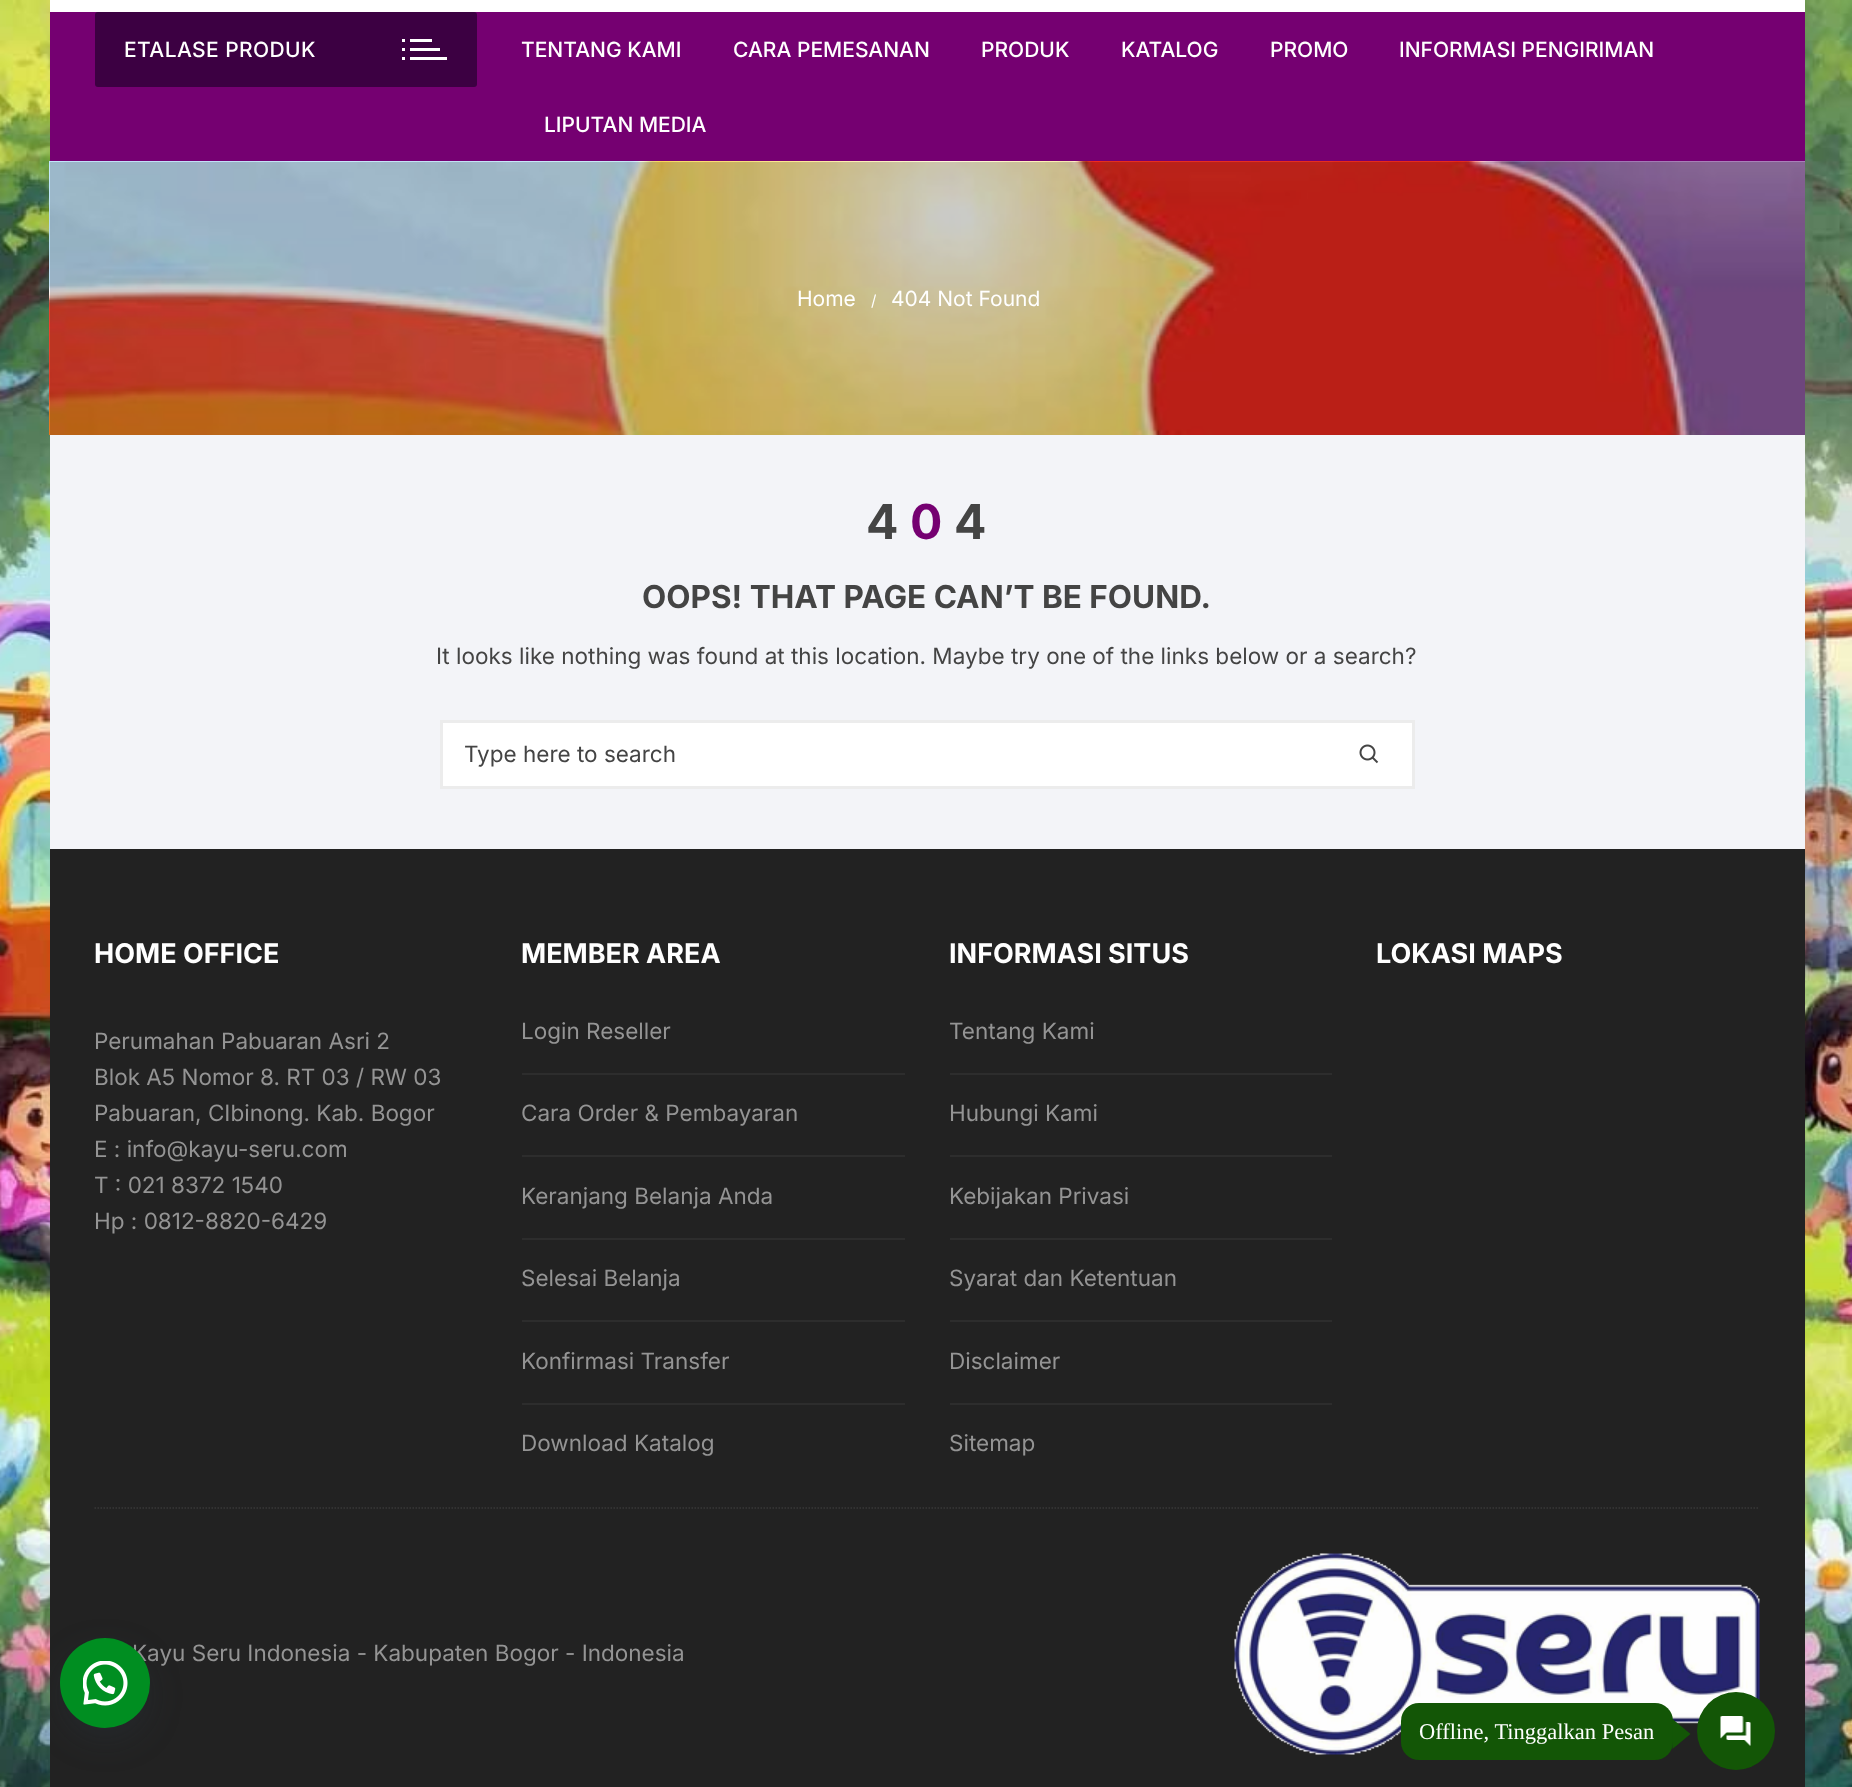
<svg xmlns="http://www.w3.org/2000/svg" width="1852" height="1787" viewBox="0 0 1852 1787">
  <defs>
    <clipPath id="clip1"><rect x="950" y="1014" width="382" height="449"/></clipPath>
  </defs>
  <rect width="100%" height="100%" fill="rgb(255,255,255)"/>
  <image x="0" y="0" width="1852" height="1787" href="pic1.png"/>
  <rect x="50" y="435" width="1755" height="414" fill="rgb(243,244,248)"/>
  <rect x="50" y="0" width="1755" height="12" fill="rgb(255,255,255)"/>
  <rect x="50" y="12" width="1755" height="149" fill="rgb(117,0,113)"/>
  <rect x="95" y="12" width="382" height="75" rx="3" fill="rgb(60,0,66)"/>
  <text x="124" y="57" font-family="Inter" font-size="21" font-weight="500" letter-spacing="0.4" fill="rgb(255,255,255)">ETALASE PRODUK</text>
  <rect x="410" y="39" width="22" height="3" fill="rgb(255,255,255)"/>
  <rect x="402" y="39" width="3" height="3" fill="rgb(255,255,255)"/>
  <rect x="410" y="48" width="30" height="3" fill="rgb(255,255,255)"/>
  <rect x="402" y="48" width="3" height="3" fill="rgb(255,255,255)"/>
  <rect x="410" y="57" width="37" height="3" fill="rgb(255,255,255)"/>
  <rect x="402" y="57" width="3" height="3" fill="rgb(255,255,255)"/>
  <g font-family="Inter" font-size="21" font-weight="500" fill="rgb(255,255,255)">
    <text x="521" y="57">TENTANG KAMI</text>
    <text x="733" y="57">CARA PEMESANAN</text>
    <text x="981" y="57">PRODUK</text>
    <text x="1121" y="57">KATALOG</text>
    <text x="1270" y="57">PROMO</text>
    <text x="1399" y="57">INFORMASI PENGIRIMAN</text>
    <text x="544" y="132">LIPUTAN MEDIA</text>
  </g>
  <image x="49" y="161" width="1756" height="274" href="pic2.png"/>
  <text x="797" y="306" font-family="Inter" font-size="21" fill="rgb(255,255,255)">Home</text>
  <text x="871" y="306" font-family="Inter" font-size="15" fill="rgb(255,255,255)">/</text>
  <text x="891" y="306" font-family="Inter" font-size="21" fill="rgb(255,255,255)">404 Not Found</text>
  <text x="866" y="539" font-family="Inter" font-size="48" font-weight="bold" fill="rgb(68,68,68)">4</text>
  <text x="910" y="539" font-family="Inter" font-size="48" font-weight="bold" fill="rgb(117,0,113)">0</text>
  <text x="954" y="539" font-family="Inter" font-size="48" font-weight="bold" fill="rgb(68,68,68)">4</text>
  <text x="642" y="608" font-family="Inter" font-size="31.5" font-weight="bold" fill="rgb(68,68,68)">OOPS! THAT PAGE CAN’T BE FOUND.</text>
  <text x="436" y="664" font-family="Inter" font-size="22.5" fill="rgb(68,68,68)">It looks like nothing was found at this location. Maybe try one of the links below or a search?</text>
  <rect x="441.5" y="721.5" width="972" height="66" fill="rgb(255,255,255)" stroke="rgb(236,236,236)" stroke-width="3"/>
  <text x="464" y="762" font-family="Inter" font-size="22.5" fill="rgb(68,68,68)">Type here to search</text>
  <image x="1359" y="744" width="20" height="20" href="pic3.png"/>
  <rect x="50" y="849" width="1755" height="938" fill="rgb(34,34,34)"/>
  <path d="M94.5 1508H1759.5" fill="none" stroke="rgb(56,56,56)" stroke-width="1.5" stroke-dasharray="1.5 1.5"/>
  <text x="94" y="963" font-family="Inter" font-size="27" font-weight="bold" fill="rgb(255,255,255)">HOME OFFICE</text>
  <g font-family="Inter" font-size="22.5" fill="rgb(148,148,148)">
    <text>
      <tspan x="94" y="1049">Perumahan Pabuaran Asri 2</tspan>
      <tspan x="94" y="1085">Blok A5 Nomor 8. RT 03 / RW 03</tspan>
      <tspan x="94" y="1121">Pabuaran, CIbinong. Kab. Bogor</tspan>
      <tspan x="94" y="1157">E : info@kayu-seru.com</tspan>
      <tspan x="94" y="1193">T : 021 8372 1540</tspan>
      <tspan x="94" y="1229">Hp : 0812-8820-6429</tspan>
    </text>
  </g>
  <text x="521" y="963" font-family="Inter" font-size="27" font-weight="bold" fill="rgb(255,255,255)">MEMBER AREA</text>
  <rect x="522" y="1073" width="383" height="2" fill="rgb(45,45,45)"/>
  <text x="521" y="1039" font-family="Inter" font-size="22.5" fill="rgb(148,148,148)">Login Reseller</text>
  <rect x="522" y="1155" width="383" height="2" fill="rgb(45,45,45)"/>
  <text x="521" y="1121" font-family="Inter" font-size="22.5" fill="rgb(148,148,148)">Cara Order &amp; Pembayaran</text>
  <rect x="522" y="1238" width="383" height="2" fill="rgb(45,45,45)"/>
  <text x="521" y="1204" font-family="Inter" font-size="22.5" fill="rgb(148,148,148)">Keranjang Belanja Anda</text>
  <rect x="522" y="1320" width="383" height="2" fill="rgb(45,45,45)"/>
  <text x="521" y="1286" font-family="Inter" font-size="22.5" fill="rgb(148,148,148)">Selesai Belanja</text>
  <rect x="522" y="1403" width="383" height="2" fill="rgb(45,45,45)"/>
  <g font-family="Inter" font-size="22.5" fill="rgb(148,148,148)">
    <text x="521" y="1369">Konfirmasi Transfer</text>
    <text x="521" y="1451">Download Katalog</text>
  </g>
  <text x="949" y="963" font-family="Inter" font-size="27" font-weight="bold" fill="rgb(255,255,255)">INFORMASI SITUS</text>
  <rect x="950" y="1073" width="382" height="2" fill="rgb(45,45,45)"/>
  <g clip-path="url(#clip1)">
    <text x="949" y="1039" font-family="Inter" font-size="22.5" fill="rgb(148,148,148)">Tentang Kami</text>
  </g>
  <rect x="950" y="1155" width="382" height="2" fill="rgb(45,45,45)"/>
  <text x="949" y="1121" font-family="Inter" font-size="22.5" fill="rgb(148,148,148)">Hubungi Kami</text>
  <rect x="950" y="1238" width="382" height="2" fill="rgb(45,45,45)"/>
  <text x="949" y="1204" font-family="Inter" font-size="22.5" fill="rgb(148,148,148)">Kebijakan Privasi</text>
  <rect x="950" y="1320" width="382" height="2" fill="rgb(45,45,45)"/>
  <text x="949" y="1286" font-family="Inter" font-size="22.5" fill="rgb(148,148,148)">Syarat dan Ketentuan</text>
  <rect x="950" y="1403" width="382" height="2" fill="rgb(45,45,45)"/>
  <g font-family="Inter" font-size="22.5" fill="rgb(148,148,148)">
    <text x="949" y="1369">Disclaimer</text>
    <text x="949" y="1451">Sitemap</text>
  </g>
  <text x="1376" y="963" font-family="Inter" font-size="27" font-weight="bold" fill="rgb(255,255,255)">LOKASI MAPS</text>
  <text x="132" y="1661" font-family="Inter" font-size="22.5" fill="rgb(148,148,148)">Kayu Seru Indonesia - Kabupaten Bogor - Indonesia</text>
  <image x="1234" y="1553" width="526" height="202" href="pic4.png"/>
  <rect x="68" y="1658" width="75" height="75" rx="37.5" fill="rgba(45,62,79,0.3)" filter="blur(19px)"/>
  <circle cx="105" cy="1683" r="45" fill="rgb(0,142,33)"/>
  <image x="83" y="1661" width="45" height="45" href="pic5.png"/>
  <circle cx="1736" cy="1731" r="39" fill="rgb(19,86,6)"/>
  <rect x="1401" y="1703" width="272" height="57" rx="18" fill="rgb(19,86,6)"/>
  <text x="1419" y="1739" font-family="Liberation Serif" font-size="22.5" fill="rgb(255,255,255)">Offline, Tinggalkan Pesan</text>
  <path d="M1672.5 1749V1719L1690.5 1734Z" fill="rgb(19,86,6)"/>
  <image x="1720" y="1716" width="31" height="30" href="pic6.png"/>
</svg>
